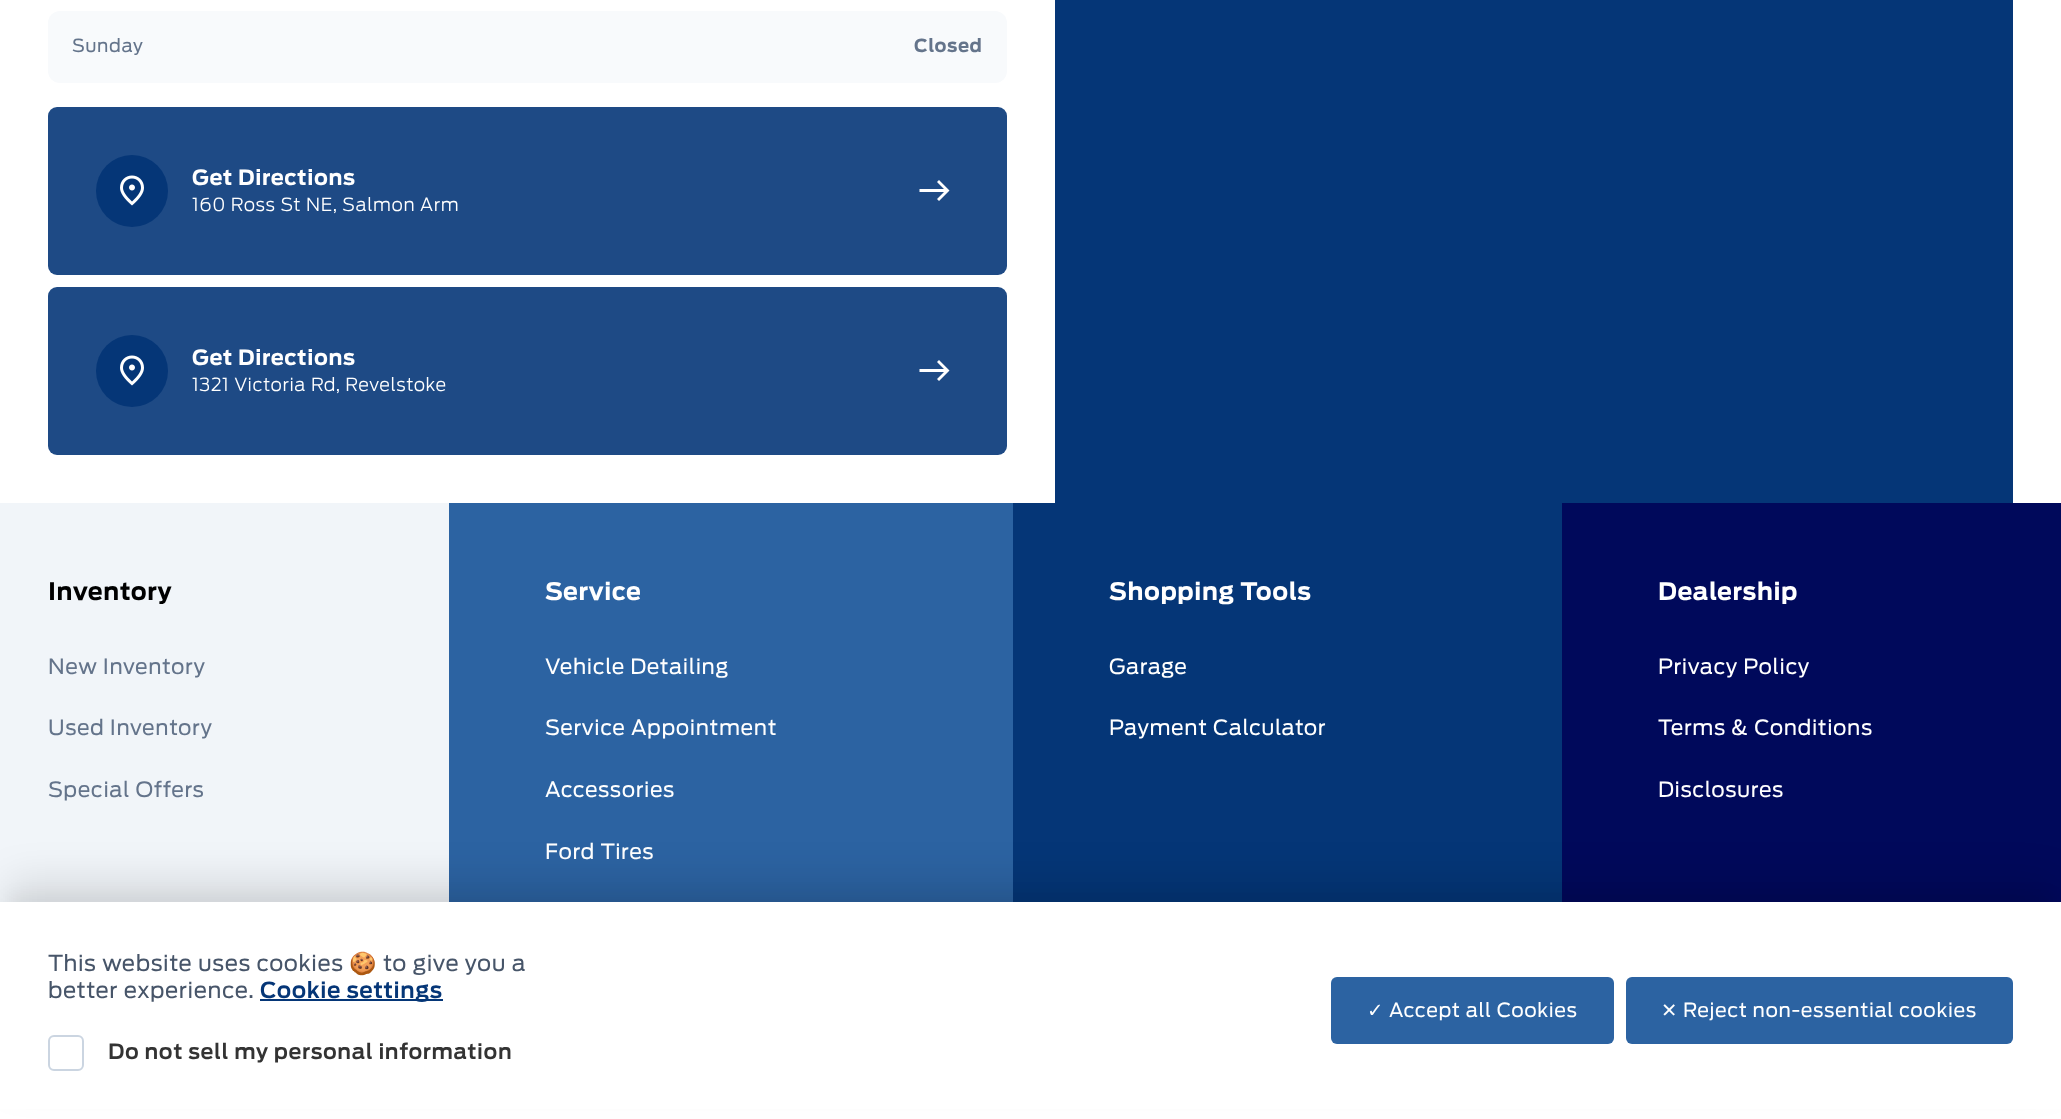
<svg xmlns="http://www.w3.org/2000/svg" width="2061" height="1119" viewBox="0 0 2061 1119">
  <rect width="100%" height="100%" fill="rgb(255,255,255)"/>
  <rect x="48" y="11" width="959" height="72" rx="12" fill="rgb(248,250,252)"/>
  <text x="72" y="52" font-family="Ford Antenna" font-size="18" letter-spacing="0.6" fill="rgb(100,116,139)">Sunday</text>
  <text x="914" y="52" font-family="Ford Antenna" font-size="18" font-weight="bold" letter-spacing="0.6" fill="rgb(100,116,139)">Closed</text>
  <rect x="48" y="107" width="959" height="168" rx="9" fill="rgb(30,74,133)"/>
  <circle cx="132" cy="191" r="36" fill="rgb(5,54,119)"/>
  <image x="120" y="175" width="24" height="31" href="pic1.png"/>
  <text x="192" y="185" font-family="Ford Antenna" font-size="21" font-weight="bold" letter-spacing="0.6" fill="rgb(255,255,255)">Get Directions</text>
  <text x="192" y="211" font-family="Ford Antenna" font-size="18" font-weight="300" letter-spacing="0.6" fill="rgb(255,255,255)">160 Ross St NE, Salmon Arm</text>
  <path d="M939 180L937 182L944 189H919.5V192H944L937 199L939 201L949.5 190.5Z" fill="rgb(255,255,255)"/>
  <rect x="48" y="287" width="959" height="168" rx="9" fill="rgb(30,74,133)"/>
  <circle cx="132" cy="371" r="36" fill="rgb(5,54,119)"/>
  <image x="120" y="355" width="24" height="31" href="pic1.png"/>
  <text x="192" y="365" font-family="Ford Antenna" font-size="21" font-weight="bold" letter-spacing="0.6" fill="rgb(255,255,255)">Get Directions</text>
  <text x="192" y="391" font-family="Ford Antenna" font-size="18" font-weight="300" letter-spacing="0.6" fill="rgb(255,255,255)">1321 Victoria Rd, Revelstoke</text>
  <path d="M939 360L937 362L944 369H919.5V372H944L937 379L939 381L949.5 370.5Z" fill="rgb(255,255,255)"/>
  <rect x="1055" y="0" width="958" height="503" fill="rgb(5,54,119)"/>
  <rect x="0" y="503" width="449" height="399" fill="rgb(241,245,249)"/>
  <rect x="1562" y="503" width="499" height="399" fill="rgb(0,9,91)"/>
  <text x="48" y="600" font-family="Ford Antenna" font-size="24" font-weight="bold" letter-spacing="0.6" fill="rgb(0,0,0)">Inventory</text>
  <g font-family="Ford Antenna" font-size="21" letter-spacing="0.6" fill="rgb(100,116,139)">
    <text x="48" y="674">New Inventory</text>
    <text x="48" y="735">Used Inventory</text>
    <text x="48" y="797">Special Offers</text>
  </g>
  <rect x="449" y="503" width="564" height="399" fill="rgb(44,99,162)"/>
  <text x="545" y="600" font-family="Ford Antenna" font-size="24" font-weight="bold" letter-spacing="0.6" fill="rgb(255,255,255)">Service</text>
  <g font-family="Ford Antenna" font-size="21" letter-spacing="0.6" fill="rgb(255,255,255)">
    <text x="545" y="674">Vehicle Detailing</text>
    <text x="545" y="735">Service Appointment</text>
    <text x="545" y="797">Accessories</text>
    <text x="545" y="859">Ford Tires</text>
  </g>
  <rect x="1013" y="503" width="549" height="399" fill="rgb(5,54,119)"/>
  <text x="1109" y="600" font-family="Ford Antenna" font-size="24" font-weight="bold" letter-spacing="0.6" fill="rgb(255,255,255)">Shopping Tools</text>
  <g font-family="Ford Antenna" font-size="21" letter-spacing="0.6" fill="rgb(255,255,255)">
    <text x="1109" y="674">Garage</text>
    <text x="1109" y="735">Payment Calculator</text>
  </g>
  <text x="1658" y="600" font-family="Ford Antenna" font-size="24" font-weight="bold" letter-spacing="0.6" fill="rgb(255,255,255)">Dealership</text>
  <g font-family="Ford Antenna" font-size="21" letter-spacing="0.6" fill="rgb(255,255,255)">
    <text x="1658" y="674">Privacy Policy</text>
    <text x="1658" y="735">Terms &amp; Conditions</text>
    <text x="1658" y="797">Disclosures</text>
  </g>
  <rect x="8" y="894" width="2046" height="203" fill="rgba(0,0,0,0.04)" filter="blur(7.5px)"/>
  <rect x="8" y="879" width="2046" height="203" fill="rgba(0,0,0,0.1)" filter="blur(19px)"/>
  <rect x="0" y="902" width="2061" height="207" fill="rgb(255,255,255)"/>
  <text x="48" y="971" font-family="Ford Antenna" font-size="22" letter-spacing="0.6" fill="rgb(71,85,105)">This website uses cookies</text>
  <text x="349" y="971" font-family="Noto Color Emoji" font-size="22" letter-spacing="0.6" fill="rgb(71,85,105)">🍪</text>
  <g font-family="Ford Antenna" font-size="22" letter-spacing="0.6" fill="rgb(71,85,105)">
    <text x="383" y="971">to give you a</text>
    <text x="48" y="998">better experience.</text>
  </g>
  <rect x="260" y="999" width="183" height="2" fill="rgb(5,54,119)"/>
  <text x="260" y="998" font-family="Ford Antenna" font-size="22" font-weight="600" letter-spacing="0.6" fill="rgb(5,54,119)">Cookie settings</text>
  <rect x="49" y="1036" width="34" height="34" rx="5" fill="none" stroke="rgb(203,213,225)" stroke-width="2"/>
  <text x="108" y="1059" font-family="Ford Antenna" font-size="21" font-weight="600" letter-spacing="0.6" fill="rgb(51,51,51)">Do not sell my personal information</text>
  <rect x="1331" y="977" width="283" height="67" rx="6" fill="rgb(44,99,162)"/>
  <text x="1367" y="1017" font-family="DejaVu Sans" font-size="19.5" letter-spacing="0.6" fill="rgb(255,255,255)">✓</text>
  <text x="1389" y="1017" font-family="Ford Antenna" font-size="19.5" letter-spacing="0.6" fill="rgb(255,255,255)">Accept all Cookies</text>
  <rect x="1626" y="977" width="387" height="67" rx="6" fill="rgb(44,99,162)"/>
  <text x="1661" y="1017" font-family="DejaVu Sans" font-size="19.5" letter-spacing="0.6" fill="rgb(255,255,255)">✕</text>
  <text x="1683" y="1017" font-family="Ford Antenna" font-size="19.5" letter-spacing="0.6" fill="rgb(255,255,255)">Reject non-essential cookies</text>
</svg>
